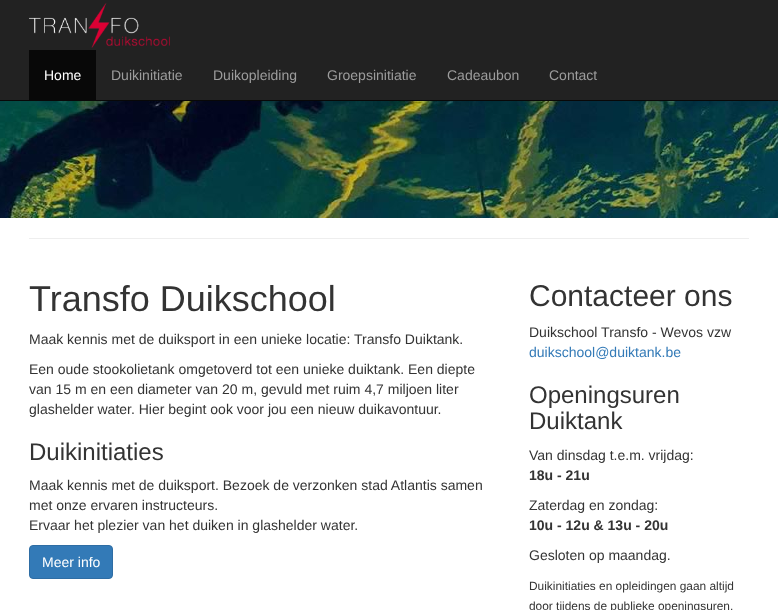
<svg xmlns="http://www.w3.org/2000/svg" width="778" height="610" viewBox="0 0 778 610">
  <rect width="100%" height="100%" fill="rgb(255,255,255)"/>
  <rect x="0" y="0" width="778" height="100" fill="rgb(34,34,34)"/>
  <rect x="0" y="100" width="778" height="1" fill="rgb(8,8,8)"/>
  <image x="29" y="3" width="141" height="45" href="pic1.png"/>
  <rect x="29" y="50" width="67" height="50" fill="rgb(8,8,8)"/>
  <text x="44" y="80" font-family="Liberation Sans" font-size="14" fill="rgb(255,255,255)">Home</text>
  <g font-family="Liberation Sans" font-size="14" fill="rgb(157,157,157)">
    <text x="111" y="80">Duikinitiatie</text>
    <text x="213" y="80">Duikopleiding</text>
    <text x="327" y="80">Groepsinitiatie</text>
    <text x="447" y="80">Cadeaubon</text>
    <text x="549" y="80">Contact</text>
  </g>
  <image x="0" y="101" width="778" height="117" href="pic2.png"/>
  <rect x="29" y="238" width="720" height="1" fill="rgb(238,238,238)"/>
  <text x="29" y="311" font-family="Liberation Sans" font-size="36" fill="rgb(51,51,51)">Transfo Duikschool</text>
  <g font-family="Liberation Sans" font-size="14" fill="rgb(51,51,51)">
    <text x="29" y="344">Maak kennis met de duiksport in een unieke locatie: Transfo Duiktank.</text>
    <text>
      <tspan x="29" y="374">Een oude stookolietank omgetoverd tot een unieke duiktank. Een diepte</tspan>
      <tspan x="29" y="394">van 15 m en een diameter van 20 m, gevuld met ruim 4,7 miljoen liter</tspan>
      <tspan x="29" y="414">glashelder water. Hier begint ook voor jou een nieuw duikavontuur.</tspan>
    </text>
  </g>
  <text x="29" y="460" font-family="Liberation Sans" font-size="24" fill="rgb(51,51,51)">Duikinitiaties</text>
  <g font-family="Liberation Sans" font-size="14" fill="rgb(51,51,51)">
    <text>
      <tspan x="29" y="490">Maak kennis met de duiksport. Bezoek de verzonken stad Atlantis samen</tspan>
      <tspan x="29" y="510">met onze ervaren instructeurs.</tspan>
      <tspan x="29" y="530">Ervaar het plezier van het duiken in glashelder water.</tspan>
    </text>
  </g>
  <rect x="29.5" y="545.5" width="83" height="33" rx="3.5" fill="rgb(51,122,183)" stroke="rgb(46,109,164)"/>
  <text x="42" y="567" font-family="Liberation Sans" font-size="14" fill="rgb(255,255,255)">Meer info</text>
  <text x="529" y="306" font-family="Liberation Sans" font-size="30" fill="rgb(51,51,51)">Contacteer ons</text>
  <text x="529" y="337" font-family="Liberation Sans" font-size="14" fill="rgb(51,51,51)">Duikschool Transfo - Wevos vzw</text>
  <text x="529" y="357" font-family="Liberation Sans" font-size="14" fill="rgb(51,122,183)">duikschool@duiktank.be</text>
  <g font-family="Liberation Sans" font-size="24" fill="rgb(51,51,51)">
    <text>
      <tspan x="529" y="403">Openingsuren</tspan>
      <tspan x="529" y="429">Duiktank</tspan>
    </text>
  </g>
  <text x="529" y="460" font-family="Liberation Sans" font-size="14" fill="rgb(51,51,51)">Van dinsdag t.e.m. vrijdag:</text>
  <text x="529" y="480" font-family="Liberation Sans" font-size="14" font-weight="bold" fill="rgb(51,51,51)">18u - 21u</text>
  <text x="529" y="510" font-family="Liberation Sans" font-size="14" fill="rgb(51,51,51)">Zaterdag en zondag:</text>
  <text x="529" y="530" font-family="Liberation Sans" font-size="14" font-weight="bold" fill="rgb(51,51,51)">10u - 12u &amp; 13u - 20u</text>
  <text x="529" y="560" font-family="Liberation Sans" font-size="14" fill="rgb(51,51,51)">Gesloten op maandag.</text>
  <g font-family="Liberation Sans" font-size="11.9" fill="rgb(51,51,51)">
    <text>
      <tspan x="529" y="590">Duikinitiaties en opleidingen gaan altijd</tspan>
      <tspan x="529" y="610">door tijdens de publieke openingsuren.</tspan>
    </text>
  </g>
</svg>
